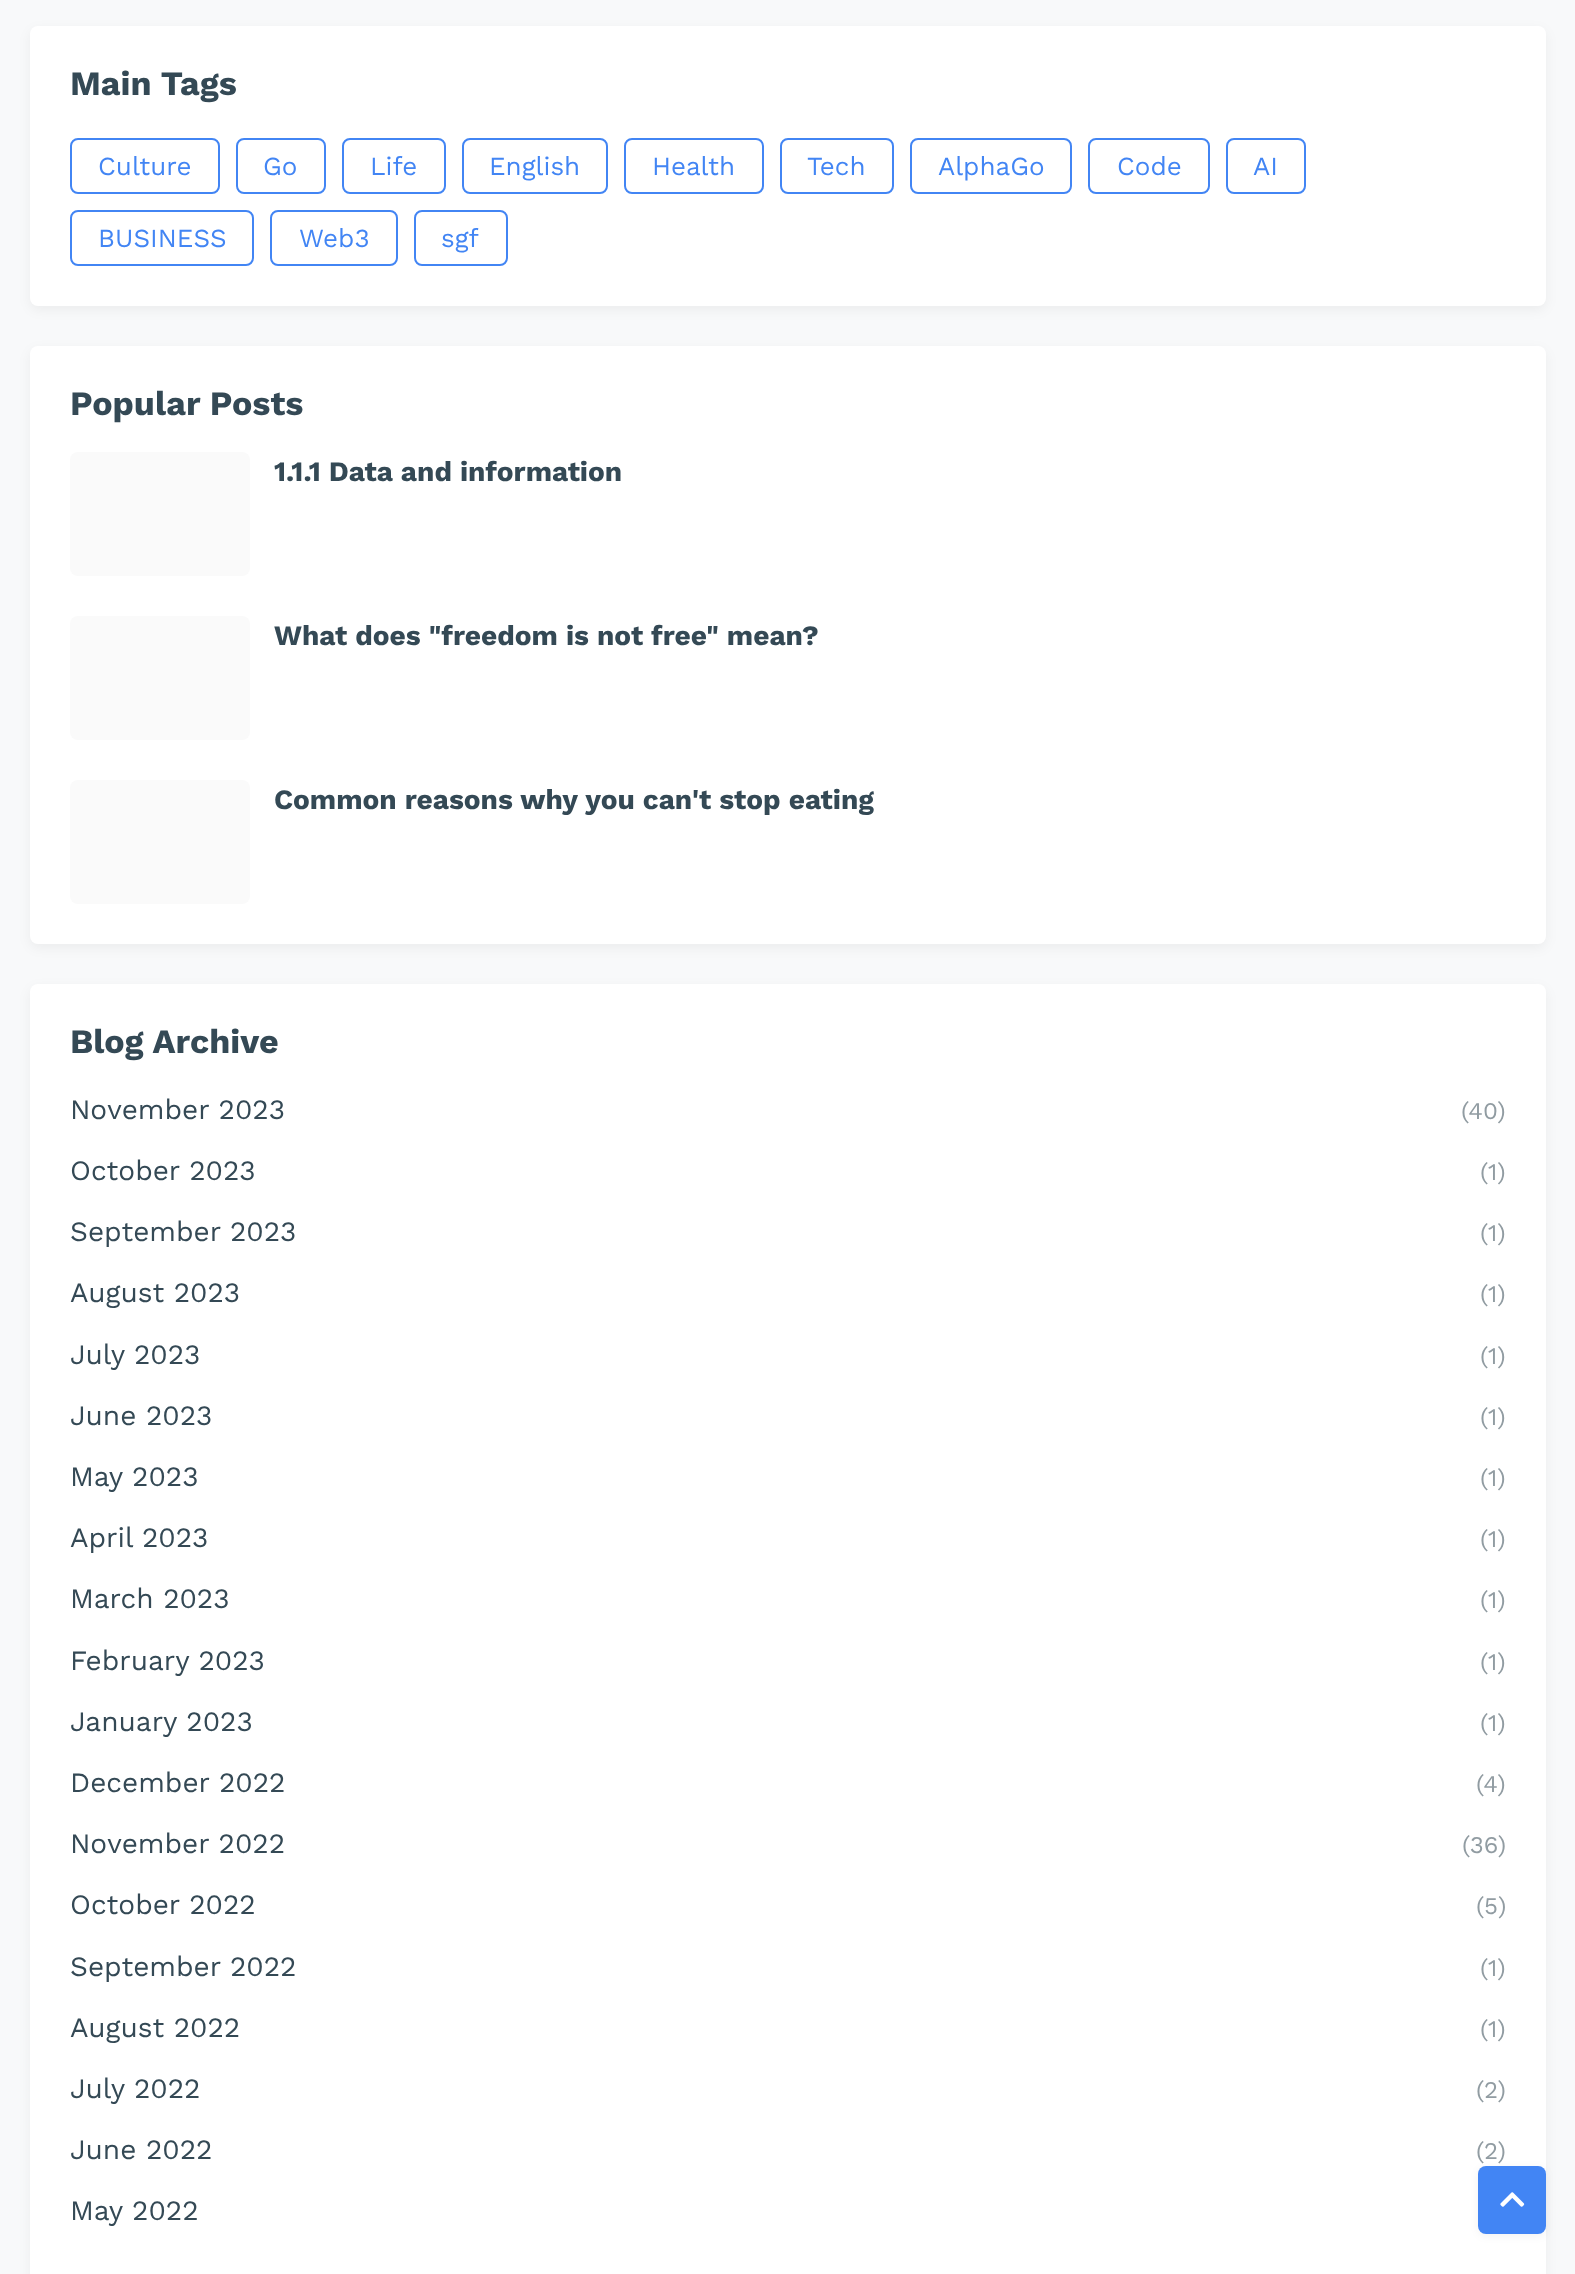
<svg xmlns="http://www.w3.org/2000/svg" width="1575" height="2274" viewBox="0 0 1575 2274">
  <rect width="100%" height="100%" fill="rgb(248,249,250)"/>
  <rect x="30" y="30" width="1516" height="280" rx="8" fill="rgba(0,0,0,0.05)" filter="blur(6px)"/>
  <rect x="30" y="26" width="1516" height="280" rx="8" fill="rgb(255,255,255)"/>
  <text x="70" y="95" font-family="Work Sans" font-size="34" font-weight="bold" fill="rgb(52,73,85)">Main Tags</text>
  <rect x="71" y="139" width="148" height="54" rx="7" fill="none" stroke="rgb(66,133,244)" stroke-width="2"/>
  <text x="98" y="175" font-family="Work Sans" font-size="26" fill="rgb(66,133,244)">Culture</text>
  <rect x="237" y="139" width="88" height="54" rx="7" fill="none" stroke="rgb(66,133,244)" stroke-width="2"/>
  <text x="263" y="175" font-family="Work Sans" font-size="26" fill="rgb(66,133,244)">Go</text>
  <rect x="343" y="139" width="102" height="54" rx="7" fill="none" stroke="rgb(66,133,244)" stroke-width="2"/>
  <text x="370" y="175" font-family="Work Sans" font-size="26" fill="rgb(66,133,244)">Life</text>
  <rect x="463" y="139" width="144" height="54" rx="7" fill="none" stroke="rgb(66,133,244)" stroke-width="2"/>
  <text x="489" y="175" font-family="Work Sans" font-size="26" fill="rgb(66,133,244)">English</text>
  <rect x="625" y="139" width="138" height="54" rx="7" fill="none" stroke="rgb(66,133,244)" stroke-width="2"/>
  <text x="652" y="175" font-family="Work Sans" font-size="26" fill="rgb(66,133,244)">Health</text>
  <rect x="781" y="139" width="112" height="54" rx="7" fill="none" stroke="rgb(66,133,244)" stroke-width="2"/>
  <text x="807" y="175" font-family="Work Sans" font-size="26" fill="rgb(66,133,244)">Tech</text>
  <rect x="911" y="139" width="160" height="54" rx="7" fill="none" stroke="rgb(66,133,244)" stroke-width="2"/>
  <text x="938" y="175" font-family="Work Sans" font-size="26" fill="rgb(66,133,244)">AlphaGo</text>
  <rect x="1089" y="139" width="120" height="54" rx="7" fill="none" stroke="rgb(66,133,244)" stroke-width="2"/>
  <text x="1117" y="175" font-family="Work Sans" font-size="26" fill="rgb(66,133,244)">Code</text>
  <rect x="1227" y="139" width="78" height="54" rx="7" fill="none" stroke="rgb(66,133,244)" stroke-width="2"/>
  <text x="1253" y="175" font-family="Work Sans" font-size="26" fill="rgb(66,133,244)">AI</text>
  <rect x="71" y="211" width="182" height="54" rx="7" fill="none" stroke="rgb(66,133,244)" stroke-width="2"/>
  <text x="98" y="247" font-family="Work Sans" font-size="26" fill="rgb(66,133,244)">BUSINESS</text>
  <rect x="271" y="211" width="126" height="54" rx="7" fill="none" stroke="rgb(66,133,244)" stroke-width="2"/>
  <text x="299" y="247" font-family="Work Sans" font-size="26" fill="rgb(66,133,244)">Web3</text>
  <rect x="415" y="211" width="92" height="54" rx="7" fill="none" stroke="rgb(66,133,244)" stroke-width="2"/>
  <text x="441" y="247" font-family="Work Sans" font-size="26" fill="rgb(66,133,244)">sgf</text>
  <rect x="30" y="350" width="1516" height="598" rx="8" fill="rgba(0,0,0,0.05)" filter="blur(6px)"/>
  <rect x="30" y="346" width="1516" height="598" rx="8" fill="rgb(255,255,255)"/>
  <text x="70" y="415" font-family="Work Sans" font-size="34" font-weight="bold" fill="rgb(52,73,85)">Popular Posts</text>
  <rect x="70" y="452" width="180" height="124" rx="8" fill="rgb(250,250,250)"/>
  <text x="274" y="481" font-family="Work Sans" font-size="28" font-weight="bold" fill="rgb(52,73,85)">1.1.1 Data and information</text>
  <rect x="70" y="616" width="180" height="124" rx="8" fill="rgb(250,250,250)"/>
  <text x="274" y="645" font-family="Work Sans" font-size="28" font-weight="bold" fill="rgb(52,73,85)">What does "freedom is not free" mean?</text>
  <rect x="70" y="780" width="180" height="124" rx="8" fill="rgb(250,250,250)"/>
  <text x="274" y="809" font-family="Work Sans" font-size="28" font-weight="bold" fill="rgb(52,73,85)">Common reasons why you can't stop eating</text>
  <rect x="30" y="988" width="1516" height="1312" rx="8" fill="rgba(0,0,0,0.05)" filter="blur(6px)"/>
  <rect x="30" y="984" width="1516" height="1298" rx="8" fill="rgb(255,255,255)"/>
  <text x="70" y="1053" font-family="Work Sans" font-size="34" font-weight="bold" fill="rgb(52,73,85)">Blog Archive</text>
  <text x="70" y="1119" font-family="Work Sans" font-size="28" fill="rgb(52,73,85)">November 2023</text>
  <text x="1461" y="1119" font-family="Work Sans" font-size="24" fill="rgb(145,156,162)">(40)</text>
  <text x="70" y="1180" font-family="Work Sans" font-size="28" fill="rgb(52,73,85)">October 2023</text>
  <text x="1480" y="1180" font-family="Work Sans" font-size="24" fill="rgb(145,156,162)">(1)</text>
  <text x="70" y="1241" font-family="Work Sans" font-size="28" fill="rgb(52,73,85)">September 2023</text>
  <text x="1480" y="1241" font-family="Work Sans" font-size="24" fill="rgb(145,156,162)">(1)</text>
  <text x="70" y="1302" font-family="Work Sans" font-size="28" fill="rgb(52,73,85)">August 2023</text>
  <text x="1480" y="1302" font-family="Work Sans" font-size="24" fill="rgb(145,156,162)">(1)</text>
  <text x="70" y="1364" font-family="Work Sans" font-size="28" fill="rgb(52,73,85)">July 2023</text>
  <text x="1480" y="1364" font-family="Work Sans" font-size="24" fill="rgb(145,156,162)">(1)</text>
  <text x="70" y="1425" font-family="Work Sans" font-size="28" fill="rgb(52,73,85)">June 2023</text>
  <text x="1480" y="1425" font-family="Work Sans" font-size="24" fill="rgb(145,156,162)">(1)</text>
  <text x="70" y="1486" font-family="Work Sans" font-size="28" fill="rgb(52,73,85)">May 2023</text>
  <text x="1480" y="1486" font-family="Work Sans" font-size="24" fill="rgb(145,156,162)">(1)</text>
  <text x="70" y="1547" font-family="Work Sans" font-size="28" fill="rgb(52,73,85)">April 2023</text>
  <text x="1480" y="1547" font-family="Work Sans" font-size="24" fill="rgb(145,156,162)">(1)</text>
  <text x="70" y="1608" font-family="Work Sans" font-size="28" fill="rgb(52,73,85)">March 2023</text>
  <text x="1480" y="1608" font-family="Work Sans" font-size="24" fill="rgb(145,156,162)">(1)</text>
  <text x="70" y="1670" font-family="Work Sans" font-size="28" fill="rgb(52,73,85)">February 2023</text>
  <text x="1480" y="1670" font-family="Work Sans" font-size="24" fill="rgb(145,156,162)">(1)</text>
  <text x="70" y="1731" font-family="Work Sans" font-size="28" fill="rgb(52,73,85)">January 2023</text>
  <text x="1480" y="1731" font-family="Work Sans" font-size="24" fill="rgb(145,156,162)">(1)</text>
  <text x="70" y="1792" font-family="Work Sans" font-size="28" fill="rgb(52,73,85)">December 2022</text>
  <text x="1476" y="1792" font-family="Work Sans" font-size="24" fill="rgb(145,156,162)">(4)</text>
  <text x="70" y="1853" font-family="Work Sans" font-size="28" fill="rgb(52,73,85)">November 2022</text>
  <text x="1462" y="1853" font-family="Work Sans" font-size="24" fill="rgb(145,156,162)">(36)</text>
  <text x="70" y="1914" font-family="Work Sans" font-size="28" fill="rgb(52,73,85)">October 2022</text>
  <text x="1476" y="1914" font-family="Work Sans" font-size="24" fill="rgb(145,156,162)">(5)</text>
  <text x="70" y="1976" font-family="Work Sans" font-size="28" fill="rgb(52,73,85)">September 2022</text>
  <text x="1480" y="1976" font-family="Work Sans" font-size="24" fill="rgb(145,156,162)">(1)</text>
  <text x="70" y="2037" font-family="Work Sans" font-size="28" fill="rgb(52,73,85)">August 2022</text>
  <text x="1480" y="2037" font-family="Work Sans" font-size="24" fill="rgb(145,156,162)">(1)</text>
  <text x="70" y="2098" font-family="Work Sans" font-size="28" fill="rgb(52,73,85)">July 2022</text>
  <text x="1476" y="2098" font-family="Work Sans" font-size="24" fill="rgb(145,156,162)">(2)</text>
  <text x="70" y="2159" font-family="Work Sans" font-size="28" fill="rgb(52,73,85)">June 2022</text>
  <text x="1476" y="2159" font-family="Work Sans" font-size="24" fill="rgb(145,156,162)">(2)</text>
  <text x="70" y="2220" font-family="Work Sans" font-size="28" fill="rgb(52,73,85)">May 2022</text>
  <rect x="1478" y="2168" width="68" height="68" rx="8" fill="rgba(0,0,0,0.05)" filter="blur(4px)"/>
  <rect x="1478" y="2166" width="68" height="68" rx="8" fill="rgb(66,133,244)"/>
  <image x="1500" y="2192" width="25" height="15" href="pic1.png"/>
</svg>
